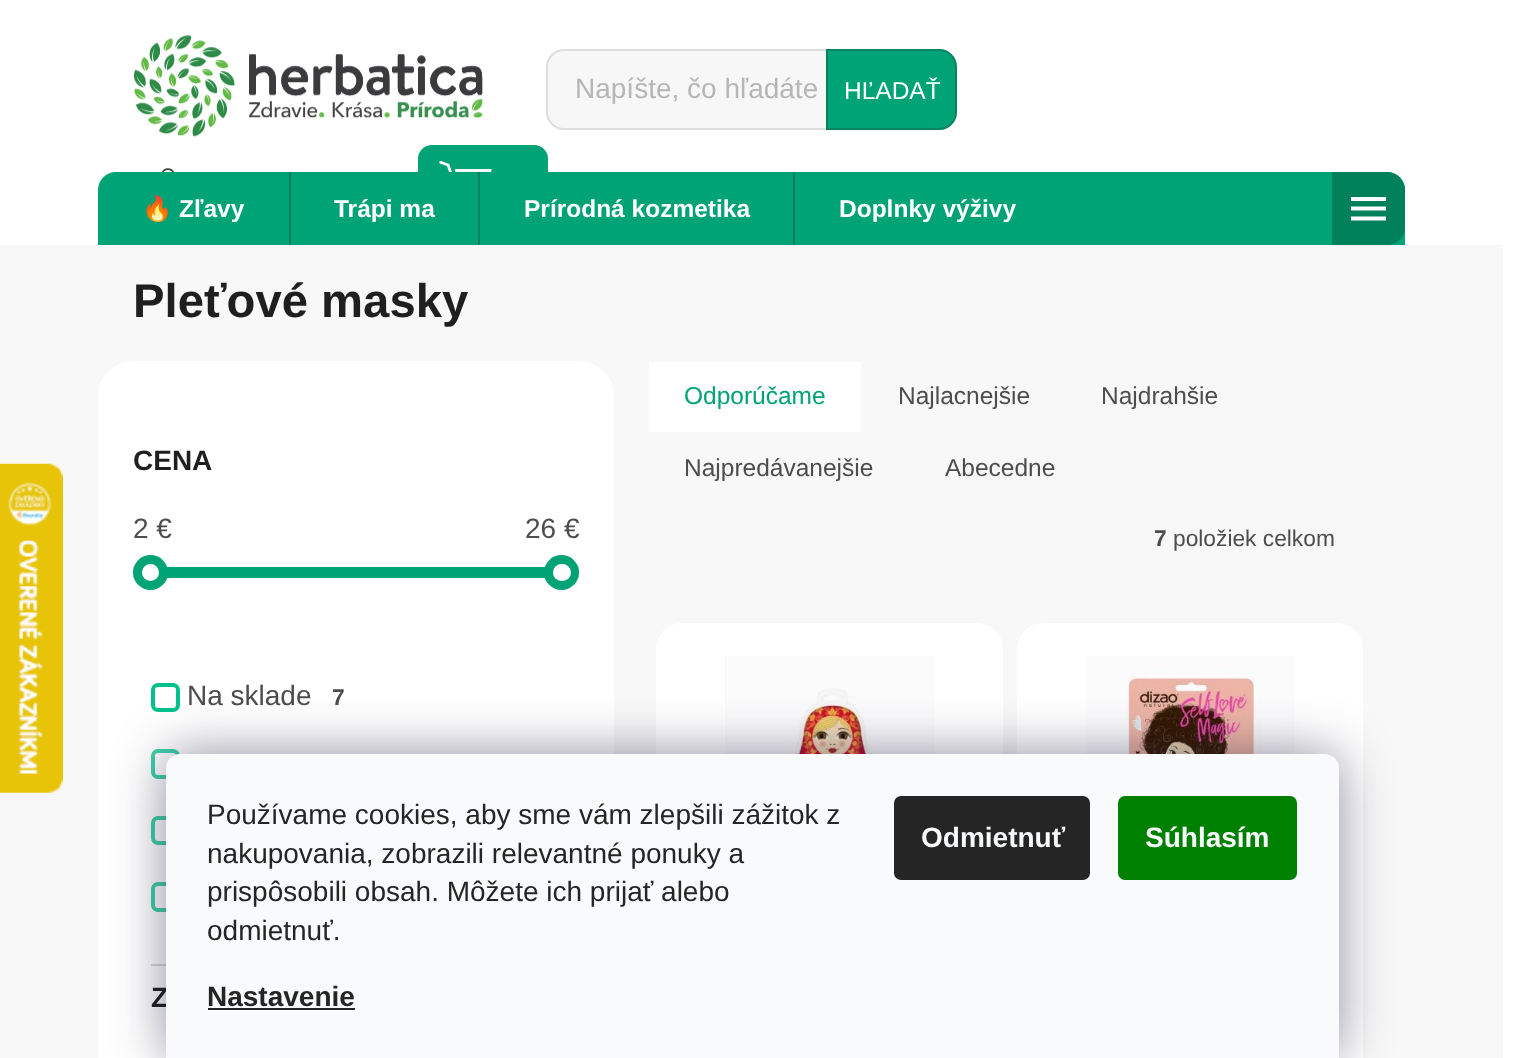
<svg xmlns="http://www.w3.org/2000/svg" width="1528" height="1058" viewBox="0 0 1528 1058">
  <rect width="100%" height="100%" fill="rgb(255,255,255)"/>
  <rect x="0" y="245" width="1503" height="813" fill="rgb(248,248,248)"/>
  <image x="0" y="463" width="63" height="330" href="pic1.png"/>
  <image x="133" y="35" width="350" height="102" href="pic2.png"/>
  <rect x="547" y="50" width="409" height="79" rx="17" fill="rgb(247,247,248)" stroke="rgb(221,221,221)" stroke-width="2"/>
  <text x="575" y="98" font-family="Liberation Sans" font-size="28" fill="rgb(182,182,182)">Napíšte, čo hľadáte</text>
  <path d="M827 50H939C948.5 50 956 57.5 956 67V112C956 121.5 948.5 129 939 129H827Z" fill="rgb(0,163,118)" stroke="rgb(6,131,97)" stroke-width="2"/>
  <text x="844" y="99" font-family="Liberation Sans" font-size="24.5" fill="rgb(255,255,255)">HĽADAŤ</text>
  <image x="162" y="168" width="12" height="4" href="pic3.png"/>
  <rect x="418" y="145" width="130" height="77" rx="14" fill="rgb(0,163,118)"/>
  <image x="439" y="160" width="53" height="12" href="pic4.png"/>
  <path d="M116 172H1387C1397 172 1405 180 1405 190V245H98V190C98 180 106 172 116 172Z" fill="rgb(0,163,118)"/>
  <text x="142" y="217" font-family="Noto Color Emoji" font-size="24.5" font-weight="bold" fill="rgb(255,255,255)">🔥</text>
  <text x="179" y="217" font-family="Liberation Sans" font-size="24.5" font-weight="bold" fill="rgb(255,255,255)">Zľavy</text>
  <rect x="289" y="172" width="2" height="73" fill="rgb(0,128,91)"/>
  <text x="334" y="217" font-family="Liberation Sans" font-size="24.5" font-weight="bold" fill="rgb(255,255,255)">Trápi ma</text>
  <rect x="478" y="172" width="2" height="73" fill="rgb(0,128,91)"/>
  <text x="524" y="217" font-family="Liberation Sans" font-size="24.5" font-weight="bold" fill="rgb(255,255,255)">Prírodná kozmetika</text>
  <rect x="793" y="172" width="2" height="73" fill="rgb(0,128,91)"/>
  <text x="839" y="217" font-family="Liberation Sans" font-size="24.5" font-weight="bold" fill="rgb(255,255,255)">Doplnky výživy</text>
  <path d="M1332 172H1387C1397 172 1405 180 1405 190V227C1405 237 1397 245 1387 245H1332Z" fill="rgb(0,128,91)"/>
  <path d="M1351 220.5H1386V216.5H1351ZM1351 210.5H1386V206.5H1351ZM1351 197V201H1386V197Z" fill="rgb(255,255,255)"/>
  <text x="133" y="317" font-family="Liberation Sans" font-size="47.25" font-weight="bold" fill="rgb(31,31,31)">Pleťové masky</text>
  <rect x="98" y="361" width="516" height="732" rx="35" fill="rgb(255,255,255)"/>
  <text x="133" y="470" font-family="Liberation Sans" font-size="28" font-weight="bold" fill="rgb(31,31,31)">CENA</text>
  <g font-family="Liberation Sans" font-size="28" fill="rgb(77,77,77)">
    <text x="133" y="538">2 €</text>
    <text x="525" y="538">26 €</text>
  </g>
  <rect x="133" y="567" width="446" height="11" fill="rgb(218,218,218)"/>
  <rect x="167" y="567" width="378" height="11" fill="rgb(0,163,118)"/>
  <circle cx="150.5" cy="572.5" r="17.5" fill="rgb(0,163,118)"/>
  <circle cx="150.5" cy="572.5" r="8.5" fill="rgb(255,255,255)"/>
  <circle cx="561.5" cy="572.5" r="17.5" fill="rgb(0,163,118)"/>
  <rect x="553" y="564" width="18" height="17" rx="8.5" fill="rgb(255,255,255)"/>
  <rect x="153" y="685" width="25" height="25" rx="5" fill="none" stroke="rgb(0,193,140)" stroke-width="4"/>
  <text x="187" y="705" font-family="Liberation Sans" font-size="28" fill="rgb(77,77,77)">Na sklade</text>
  <text x="332" y="705" font-family="Liberation Sans" font-size="22.75" font-weight="bold" fill="rgb(77,77,77)">7</text>
  <rect x="153" y="751" width="25" height="26" rx="5" fill="none" stroke="rgb(64,209,169)" stroke-width="4"/>
  <rect x="153" y="818" width="25" height="25" rx="5" fill="none" stroke="rgb(64,209,169)" stroke-width="4"/>
  <rect x="153" y="884" width="25" height="26" rx="5" fill="none" stroke="rgb(64,209,169)" stroke-width="4"/>
  <rect x="151" y="964" width="15" height="2" fill="rgb(218,218,218)"/>
  <text x="151" y="1007" font-family="Liberation Sans" font-size="28" font-weight="bold" fill="rgb(31,31,31)">Z</text>
  <rect x="649" y="362" width="212" height="70" fill="rgb(255,255,255)"/>
  <text x="684" y="404" font-family="Liberation Sans" font-size="24.5" fill="rgb(0,163,118)">Odporúčame</text>
  <g font-family="Liberation Sans" font-size="24.5" fill="rgb(77,77,77)">
    <text x="898" y="404">Najlacnejšie</text>
    <text x="1101" y="404">Najdrahšie</text>
    <text x="684" y="476">Najpredávanejšie</text>
    <text x="945" y="476">Abecedne</text>
  </g>
  <text x="1154" y="546" font-family="Liberation Sans" font-size="22.75" font-weight="bold" fill="rgb(77,77,77)">7</text>
  <text x="1173" y="546" font-family="Liberation Sans" font-size="22.75" fill="rgb(77,77,77)">položiek celkom</text>
  <rect x="656" y="623" width="347" height="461" rx="26" fill="rgb(255,255,255)"/>
  <image x="725" y="656" width="209" height="98" href="pic5.png"/>
  <rect x="1017" y="623" width="346" height="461" rx="26" fill="rgb(255,255,255)"/>
  <image x="1086" y="656" width="208" height="98" href="pic6.png"/>
  <rect x="166" y="754" width="1173" height="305" rx="14" fill="rgba(27,25,57,0.5)" filter="blur(26px)"/>
  <path d="M180 754H1325C1332.5 754 1339 760.5 1339 768V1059H166V768C166 760.5 172.5 754 180 754Z" fill="rgb(248,250,251)"/>
  <g font-family="Liberation Sans" font-size="28" fill="rgb(37,37,37)">
    <text>
      <tspan x="207" y="824">Používame cookies, aby sme vám zlepšili zážitok z</tspan>
      <tspan x="207" y="863">nakupovania, zobrazili relevantné ponuky a</tspan>
      <tspan x="207" y="901">prispôsobili obsah. Môžete ich prijať alebo</tspan>
      <tspan x="207" y="940">odmietnuť.</tspan>
    </text>
  </g>
  <text x="207" y="1006" font-family="Liberation Sans" font-size="28" font-weight="bold" fill="rgb(37,37,37)">Nastavenie</text>
  <rect x="208" y="1008" width="147" height="2" fill="rgb(37,37,37)"/>
  <rect x="894" y="796" width="196" height="84" rx="7" fill="rgb(37,37,37)"/>
  <text x="921" y="847" font-family="Liberation Sans" font-size="28" font-weight="bold" fill="rgb(248,250,251)">Odmietnuť</text>
  <rect x="1118" y="796" width="179" height="84" rx="7" fill="rgb(0,128,0)"/>
  <text x="1145" y="847" font-family="Liberation Sans" font-size="28" font-weight="bold" fill="rgb(248,250,251)">Súhlasím</text>
</svg>
